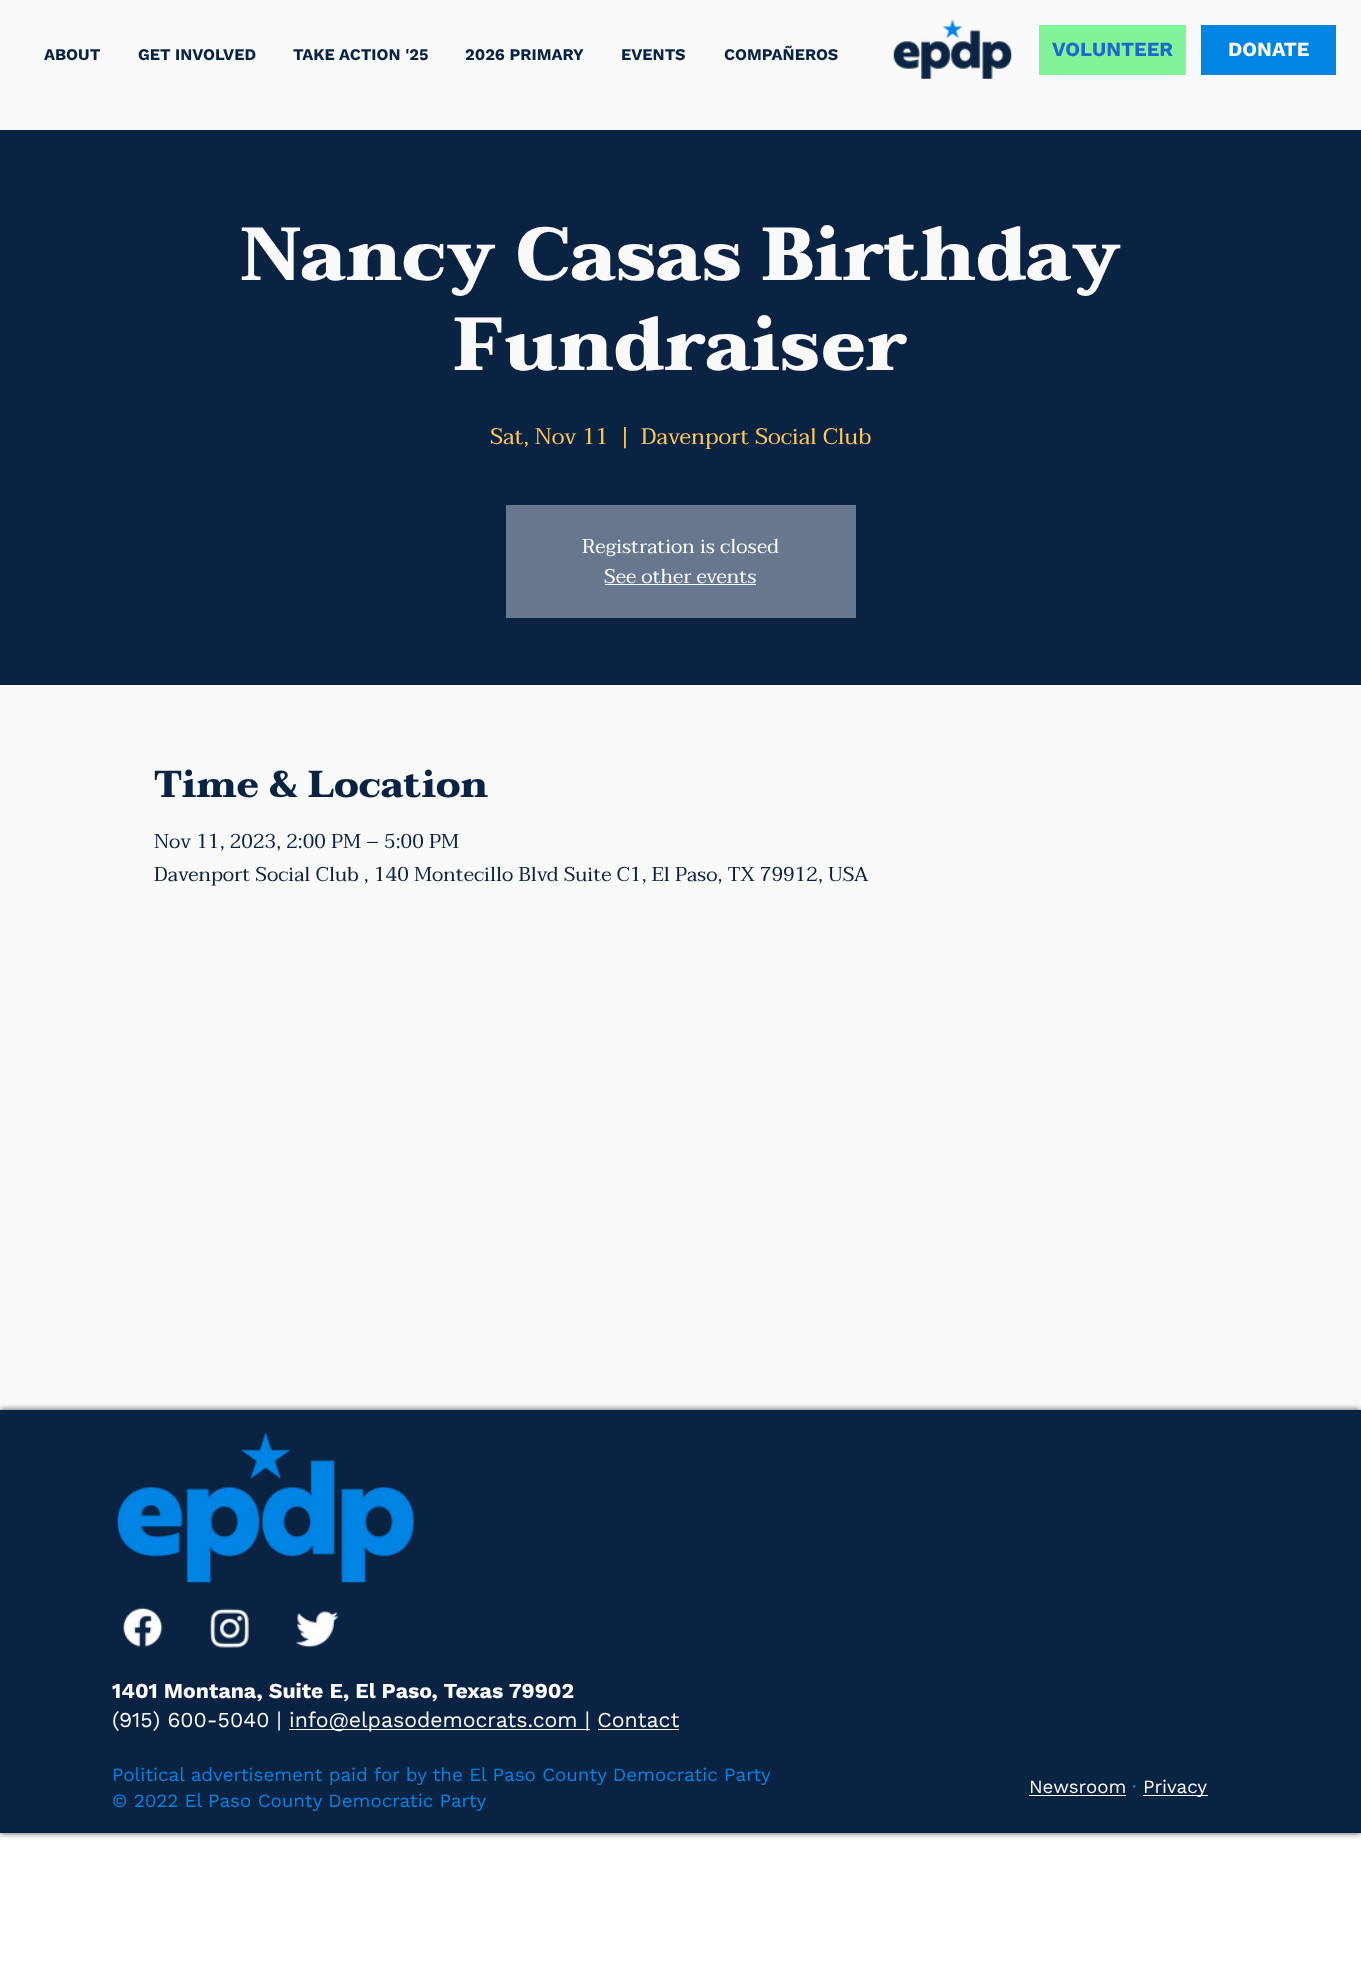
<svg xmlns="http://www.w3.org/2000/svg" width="1361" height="1976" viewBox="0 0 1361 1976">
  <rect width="100%" height="100%" fill="rgb(255,255,255)"/>
  <rect x="0" y="0" width="1361" height="130" fill="rgb(250,250,250)"/>
  <g font-family="Work Sans" font-size="16.25" font-weight="bold" fill="rgb(10,35,66)">
    <text x="44" y="60">ABOUT</text>
    <text x="138" y="60">GET INVOLVED</text>
    <text x="293" y="60">TAKE ACTION '25</text>
    <text x="465" y="60">2026 PRIMARY</text>
    <text x="621" y="60">EVENTS</text>
    <text x="724" y="60">COMPAÑEROS</text>
  </g>
  <image x="893" y="20" width="119" height="59" href="pic1.png"/>
  <rect x="1039" y="25" width="147" height="50" fill="rgb(129,244,153)"/>
  <text x="1052" y="56" font-family="Work Sans" font-size="20" font-weight="bold" fill="rgb(29,103,205)">VOLUNTEER</text>
  <rect x="1201" y="25" width="135" height="50" fill="rgb(0,133,228)"/>
  <text x="1228" y="56" font-family="Work Sans" font-size="20" font-weight="bold" fill="rgb(250,250,250)">DONATE</text>
  <rect x="0" y="130" width="1361" height="555" fill="rgb(10,35,66)"/>
  <g font-family="Taviraj" font-size="75" font-weight="800" fill="rgb(250,250,250)">
    <text x="241" y="280">Nancy Casas Birthday</text>
    <text x="454" y="370">Fundraiser</text>
  </g>
  <g font-family="Taviraj" font-size="22.5" fill="rgb(255,199,89)">
    <text x="490" y="444">Sat, Nov 11</text>
    <text x="620" y="444">|</text>
    <text x="641" y="444">Davenport Social Club</text>
  </g>
  <rect x="506" y="505" width="350" height="113" fill="rgb(102,119,142)"/>
  <g font-family="Taviraj" font-size="20" fill="rgb(250,250,250)">
    <text x="582" y="553">Registration is closed</text>
    <text x="604" y="583">See other events</text>
  </g>
  <rect x="605" y="584" width="151" height="1" fill="rgb(250,250,250)"/>
  <rect x="0" y="685" width="1361" height="725" fill="rgb(250,250,250)"/>
  <text x="154" y="797" font-family="Taviraj" font-size="37.5" font-weight="800" fill="rgb(10,35,66)">Time &amp; Location</text>
  <g font-family="Taviraj" font-size="20" fill="rgb(10,35,66)">
    <text>
      <tspan x="154" y="848">Nov 11, 2023, 2:00 PM – 5:00 PM</tspan>
      <tspan x="154" y="881">Davenport Social Club , 140 Montecillo Blvd Suite C1, El Paso, TX 79912, USA</tspan>
    </text>
  </g>
  <rect x="0" y="1410" width="1361" height="423" fill="rgba(0,0,0,0.7)" filter="blur(3px)"/>
  <rect x="0" y="1410" width="1361" height="423" fill="rgb(10,35,66)"/>
  <image x="117" y="1432" width="297" height="151" href="pic2.png"/>
  <image x="122" y="1607" width="41" height="40" href="pic3.png"/>
  <image x="210" y="1608" width="39" height="40" href="pic4.png"/>
  <image x="296" y="1611" width="43" height="37" href="pic5.png"/>
  <text x="112" y="1698" font-family="Work Sans" font-size="21.25" font-weight="bold" fill="rgb(250,250,250)">1401 Montana, Suite E, El Paso, Texas 79902</text>
  <text x="112" y="1727" font-family="Work Sans" font-size="21.25" fill="rgb(250,250,250)">(915) 600-5040 |</text>
  <rect x="289" y="1729" width="301" height="1" fill="rgb(255,255,255)"/>
  <text x="289" y="1727" font-family="Work Sans" font-size="21.25" fill="rgb(250,250,250)">info@elpasodemocrats.com | Contact</text>
  <rect x="598" y="1729" width="81" height="1" fill="rgb(255,255,255)"/>
  <g font-family="Work Sans" font-size="18.75" fill="rgb(0,133,228)">
    <text>
      <tspan x="112" y="1781">Political advertisement paid for by the El Paso County Democratic Party</tspan>
      <tspan x="112" y="1807">© 2022 El Paso County Democratic Party</tspan>
    </text>
  </g>
  <text x="1029" y="1793" font-family="Work Sans" font-size="18.75" fill="rgb(250,250,250)">Newsroom</text>
  <rect x="1029" y="1795" width="97" height="1" fill="rgb(250,250,250)"/>
  <text x="1132" y="1793" font-family="Work Sans" font-size="18.75" fill="rgb(0,133,228)">·</text>
  <rect x="1143" y="1795" width="65" height="1" fill="rgb(250,250,250)"/>
  <text x="1143" y="1793" font-family="Work Sans" font-size="18.75" fill="rgb(250,250,250)">Privacy</text>
</svg>
